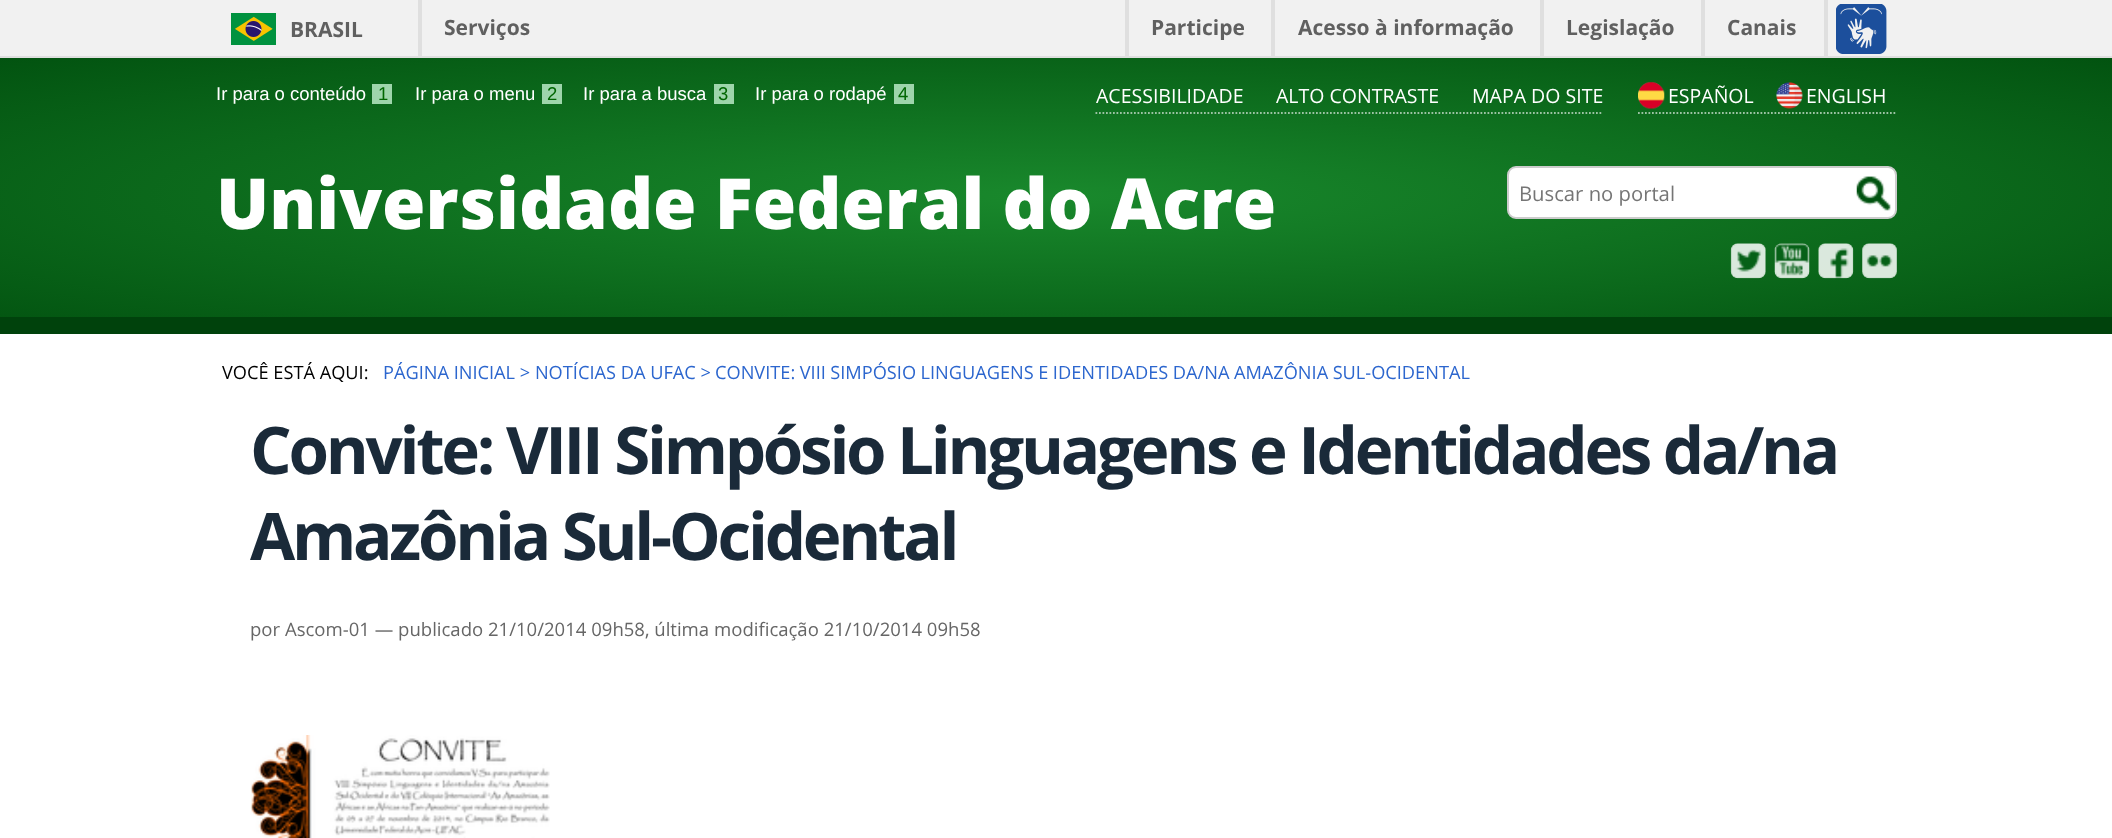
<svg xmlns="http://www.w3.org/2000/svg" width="2112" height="838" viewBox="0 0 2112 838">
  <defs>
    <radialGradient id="g1" gradientUnits="userSpaceOnUse" cx="0" cy="0" r="1" gradientTransform="matrix(1494 0 0 196 1056 196)"><stop offset="0.01" stop-color="rgb(25,136,44)"/><stop offset="1" stop-color="rgb(2,83,16)"/></radialGradient>
  </defs>
  <rect width="100%" height="100%" fill="rgb(255,255,255)"/>
  <rect x="0" y="0" width="2112" height="56" fill="rgb(241,241,241)"/>
  <rect x="0" y="56" width="2112" height="2" fill="rgb(223,223,223)"/>
  <rect x="418" y="0" width="4" height="56" fill="rgb(223,223,223)"/>
  <image x="231" y="13" width="45" height="32" href="pic1.png"/>
  <g font-family="Open Sans" font-size="21" font-weight="bold" fill="rgb(96,96,96)">
    <text x="290" y="37">BRASIL</text>
    <text x="444" y="35">Serviços</text>
  </g>
  <rect x="1271" y="0" width="4" height="56" fill="rgb(223,223,223)"/>
  <rect x="1125" y="0" width="4" height="56" fill="rgb(223,223,223)"/>
  <text x="1151" y="35" font-family="Open Sans" font-size="21" font-weight="bold" fill="rgb(96,96,96)">Participe</text>
  <rect x="1540" y="0" width="4" height="56" fill="rgb(223,223,223)"/>
  <text x="1298" y="35" font-family="Open Sans" font-size="21" font-weight="bold" fill="rgb(96,96,96)">Acesso à informação</text>
  <rect x="1701" y="0" width="4" height="56" fill="rgb(223,223,223)"/>
  <text x="1566" y="35" font-family="Open Sans" font-size="21" font-weight="bold" fill="rgb(96,96,96)">Legislação</text>
  <rect x="1824" y="0" width="4" height="56" fill="rgb(223,223,223)"/>
  <text x="1727" y="35" font-family="Open Sans" font-size="21" font-weight="bold" fill="rgb(96,96,96)">Canais</text>
  <image x="1836" y="4" width="51" height="50" href="pic2.png"/>
  <rect x="0" y="58" width="2112" height="259" fill="url(#g1)"/>
  <text x="216" y="100" font-family="Liberation Sans" font-size="18.5" fill="rgb(255,255,255)">Ir para o conteúdo</text>
  <rect x="372" y="84" width="20" height="20" fill="rgb(158,213,171)"/>
  <text x="378" y="100" font-family="Liberation Sans" font-size="18.5" fill="rgb(0,102,0)">1</text>
  <text x="415" y="100" font-family="Liberation Sans" font-size="18.5" fill="rgb(255,255,255)">Ir para o menu</text>
  <rect x="542" y="84" width="20" height="20" fill="rgb(158,213,171)"/>
  <text x="547" y="100" font-family="Liberation Sans" font-size="18.5" fill="rgb(0,102,0)">2</text>
  <text x="583" y="100" font-family="Liberation Sans" font-size="18.5" fill="rgb(255,255,255)">Ir para a busca</text>
  <rect x="714" y="84" width="20" height="20" fill="rgb(158,213,171)"/>
  <text x="718" y="100" font-family="Liberation Sans" font-size="18.5" fill="rgb(0,102,0)">3</text>
  <text x="755" y="100" font-family="Liberation Sans" font-size="18.5" fill="rgb(255,255,255)">Ir para o rodapé</text>
  <rect x="894" y="84" width="20" height="20" fill="rgb(158,213,171)"/>
  <text x="898" y="100" font-family="Liberation Sans" font-size="18.5" fill="rgb(0,102,0)">4</text>
  <path d="M1095.5 113H1603" fill="none" stroke="rgb(155,194,163)" stroke-width="1.8" stroke-dasharray="1.75 1.75"/>
  <g font-family="Open Sans" font-size="19.5" fill="rgb(255,255,255)">
    <text x="1096" y="103">ACESSIBILIDADE</text>
    <text x="1276" y="103">ALTO CONTRASTE</text>
    <text x="1472" y="103">MAPA DO SITE</text>
  </g>
  <path d="M1638 113H1897" fill="none" stroke="rgb(155,194,163)" stroke-width="1.8" stroke-dasharray="1.75 1.75"/>
  <image x="1638" y="82" width="27" height="27" href="pic3.png"/>
  <text x="1668" y="103" font-family="Open Sans" font-size="19.5" fill="rgb(255,255,255)">ESPAÑOL</text>
  <image x="1776" y="82" width="27" height="27" href="pic4.png"/>
  <text x="1806" y="103" font-family="Open Sans" font-size="19.5" fill="rgb(255,255,255)">ENGLISH</text>
  <text x="216" y="229" font-family="Open Sans" font-size="70.3" font-weight="800" fill="rgb(255,255,255)">Universidade Federal do Acre</text>
  <rect x="1508" y="167" width="388" height="51" rx="8" fill="rgb(255,255,255)" stroke="rgb(204,204,204)" stroke-width="2"/>
  <text x="1519" y="201" font-family="Open Sans" font-size="20.25" fill="rgb(117,117,117)">Buscar no portal</text>
  <image x="1856" y="176" width="35" height="35" href="pic5.png"/>
  <image x="1730" y="243" width="36" height="36" href="pic6.png"/>
  <image x="1774" y="243" width="36" height="36" href="pic7.png"/>
  <image x="1818" y="243" width="36" height="36" href="pic8.png"/>
  <image x="1862" y="243" width="35" height="36" href="pic9.png"/>
  <rect x="0" y="317" width="2112" height="17" fill="rgb(0,66,12)"/>
  <text x="222" y="379" font-family="Open Sans" font-size="18.2" fill="rgb(0,0,0)">VOCÊ ESTÁ AQUI:</text>
  <g font-family="Open Sans" font-size="18.2" fill="rgb(44,102,206)">
    <text x="383" y="379">PÁGINA INICIAL &gt; NOTÍCIAS DA UFAC &gt;</text>
    <text x="715" y="379" word-spacing="-0.25">CONVITE: VIII SIMPÓSIO LINGUAGENS E IDENTIDADES DA/NA AMAZÔNIA SUL-OCIDENTAL</text>
  </g>
  <g font-family="'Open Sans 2'" font-size="65.5" font-weight="bold" letter-spacing="-3.28" fill="rgb(26,42,57)">
    <text>
      <tspan x="250" y="474">Convite: VIII Simpósio Linguagens e Identidades da/na</tspan>
      <tspan x="250" y="560">Amazônia Sul-Ocidental</tspan>
    </text>
  </g>
  <text x="250" y="636" font-family="Open Sans" font-size="18.55" fill="rgb(102,102,102)">por Ascom-01 — publicado 21/10/2014 09h58, última modificação 21/10/2014 09h58</text>
  <image x="250" y="735" width="300" height="103" href="pic10.png"/>
</svg>
